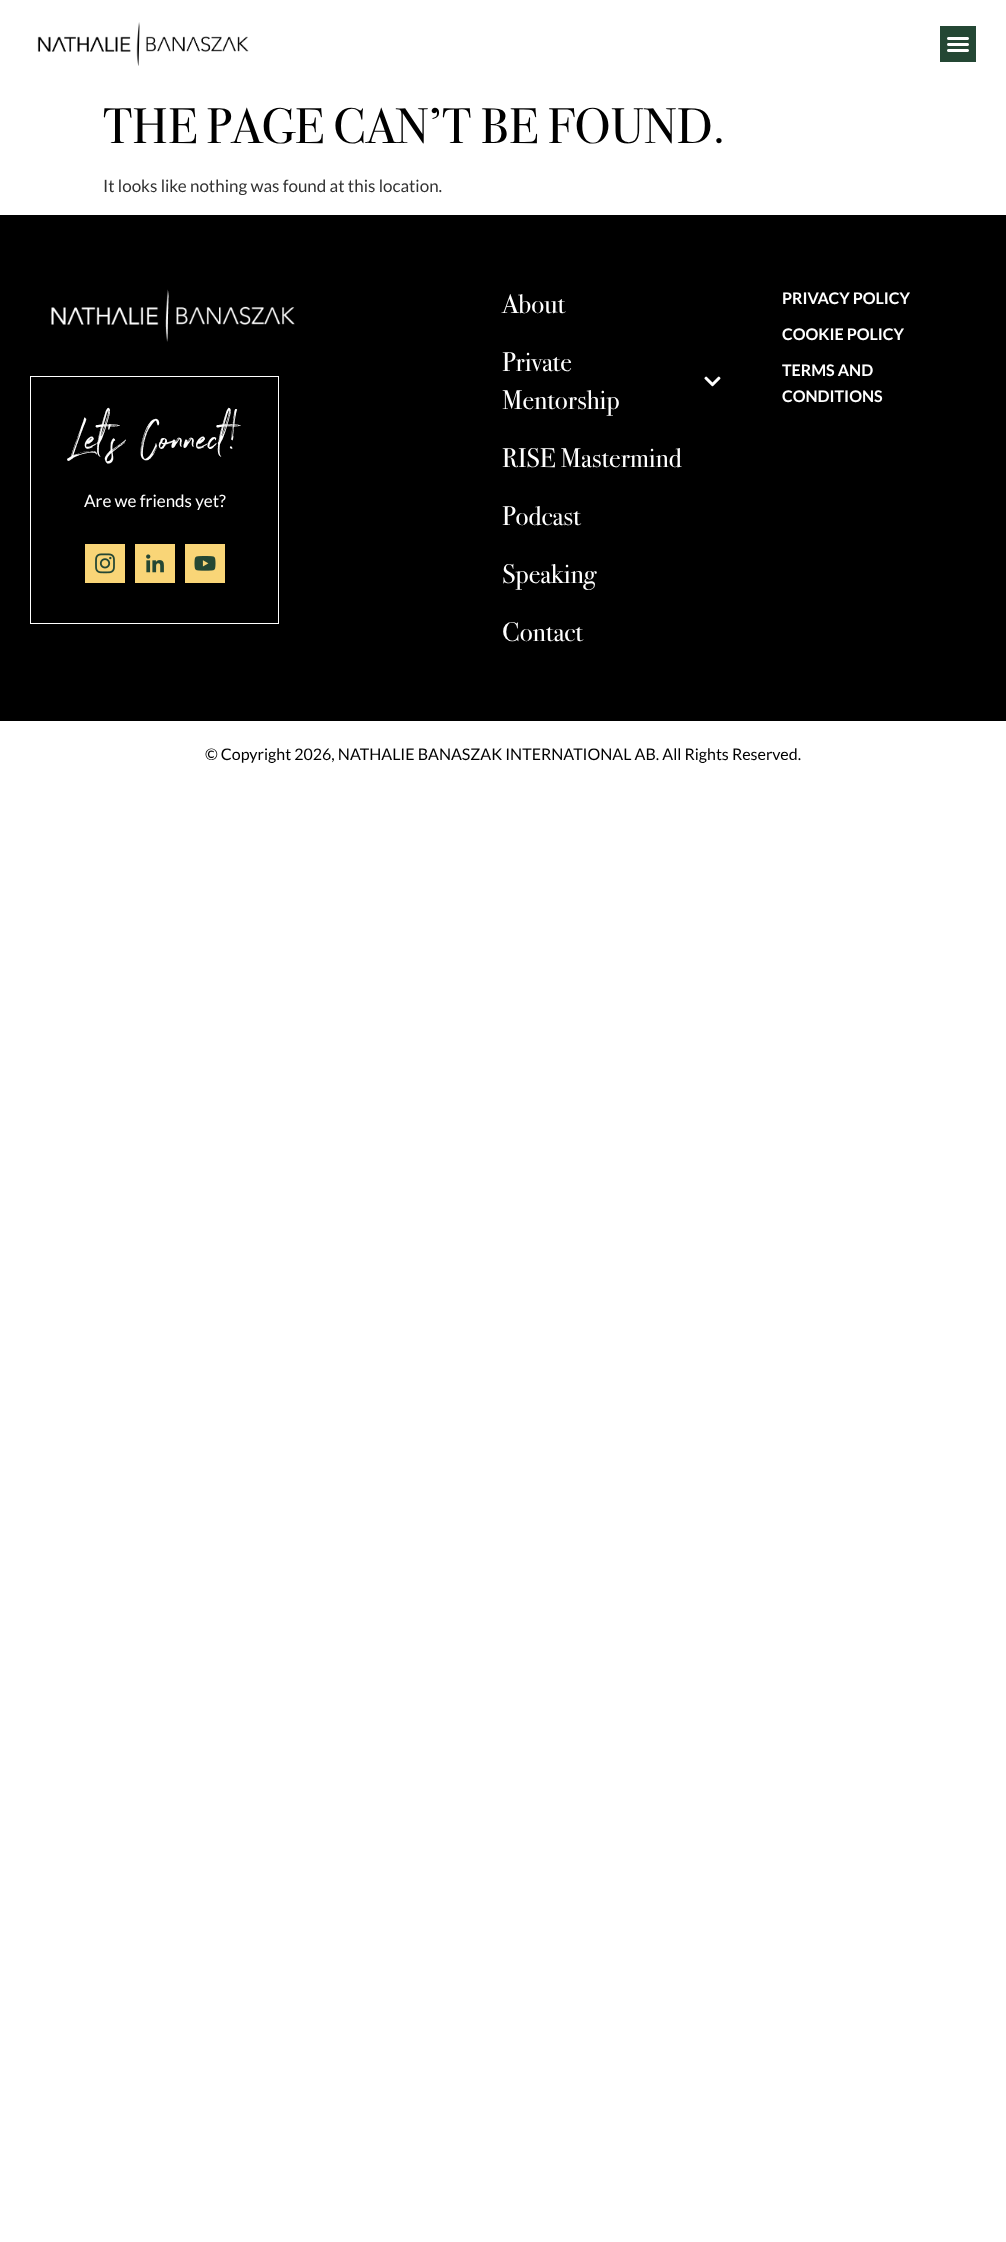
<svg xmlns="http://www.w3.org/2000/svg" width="1006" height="2242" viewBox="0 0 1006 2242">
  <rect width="100%" height="100%" fill="rgb(255,255,255)"/>
  <image x="37" y="22" width="212" height="44" href="pic1.png"/>
  <rect x="940" y="26" width="36" height="36" fill="rgb(36,71,52)"/>
  <image x="947" y="37" width="22" height="15" href="pic2.png"/>
  <text x="103" y="143" font-family="'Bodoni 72'" font-size="50" fill="rgb(0,0,0)">THE PAGE CAN’T BE FOUND.</text>
  <text x="103" y="192" font-family="Lato" font-size="17" fill="rgb(51,51,51)">It looks like nothing was found at this location.</text>
  <rect x="0" y="215" width="1006" height="506" fill="rgb(0,0,0)"/>
  <image x="51" y="289" width="244" height="53" href="pic3.png"/>
  <rect x="30.5" y="376.5" width="248" height="247" fill="none" stroke="rgb(255,255,255)"/>
  <text x="71" y="449" font-family="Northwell" font-size="50" fill="rgb(255,255,255)">Let's Connect!</text>
  <text x="84" y="507" font-family="Lato" font-size="17" fill="rgb(255,255,255)">Are we friends yet?</text>
  <image x="85" y="544" width="40" height="39" href="pic4.png"/>
  <image x="135" y="544" width="40" height="39" href="pic5.png"/>
  <image x="185" y="544" width="40" height="39" href="pic6.png"/>
  <g font-family="'Bodoni 72'" font-size="27" fill="rgb(255,255,255)">
    <text x="502" y="313">About</text>
    <text x="502" y="371">Private</text>
  </g>
  <image x="704" y="376" width="17" height="11" href="pic7.png"/>
  <g font-family="'Bodoni 72'" font-size="27" fill="rgb(255,255,255)">
    <text x="502" y="409">Mentorship</text>
    <text x="502" y="467">RISE Mastermind</text>
    <text x="502" y="525">Podcast</text>
    <text x="502" y="583">Speaking</text>
    <text x="502" y="641">Contact</text>
  </g>
  <g font-family="Lato" font-size="16" font-weight="bold" fill="rgb(255,255,255)">
    <text x="782" y="304">PRIVACY POLICY</text>
    <text x="782" y="340">COOKIE POLICY</text>
    <text>
      <tspan x="782" y="376">TERMS AND</tspan>
      <tspan x="782" y="402">CONDITIONS</tspan>
    </text>
  </g>
  <text x="205" y="760" font-family="Lato" font-size="16" fill="rgb(0,0,0)">© Copyright 2026, NATHALIE BANASZAK INTERNATIONAL AB. All Rights Reserved.</text>
</svg>
